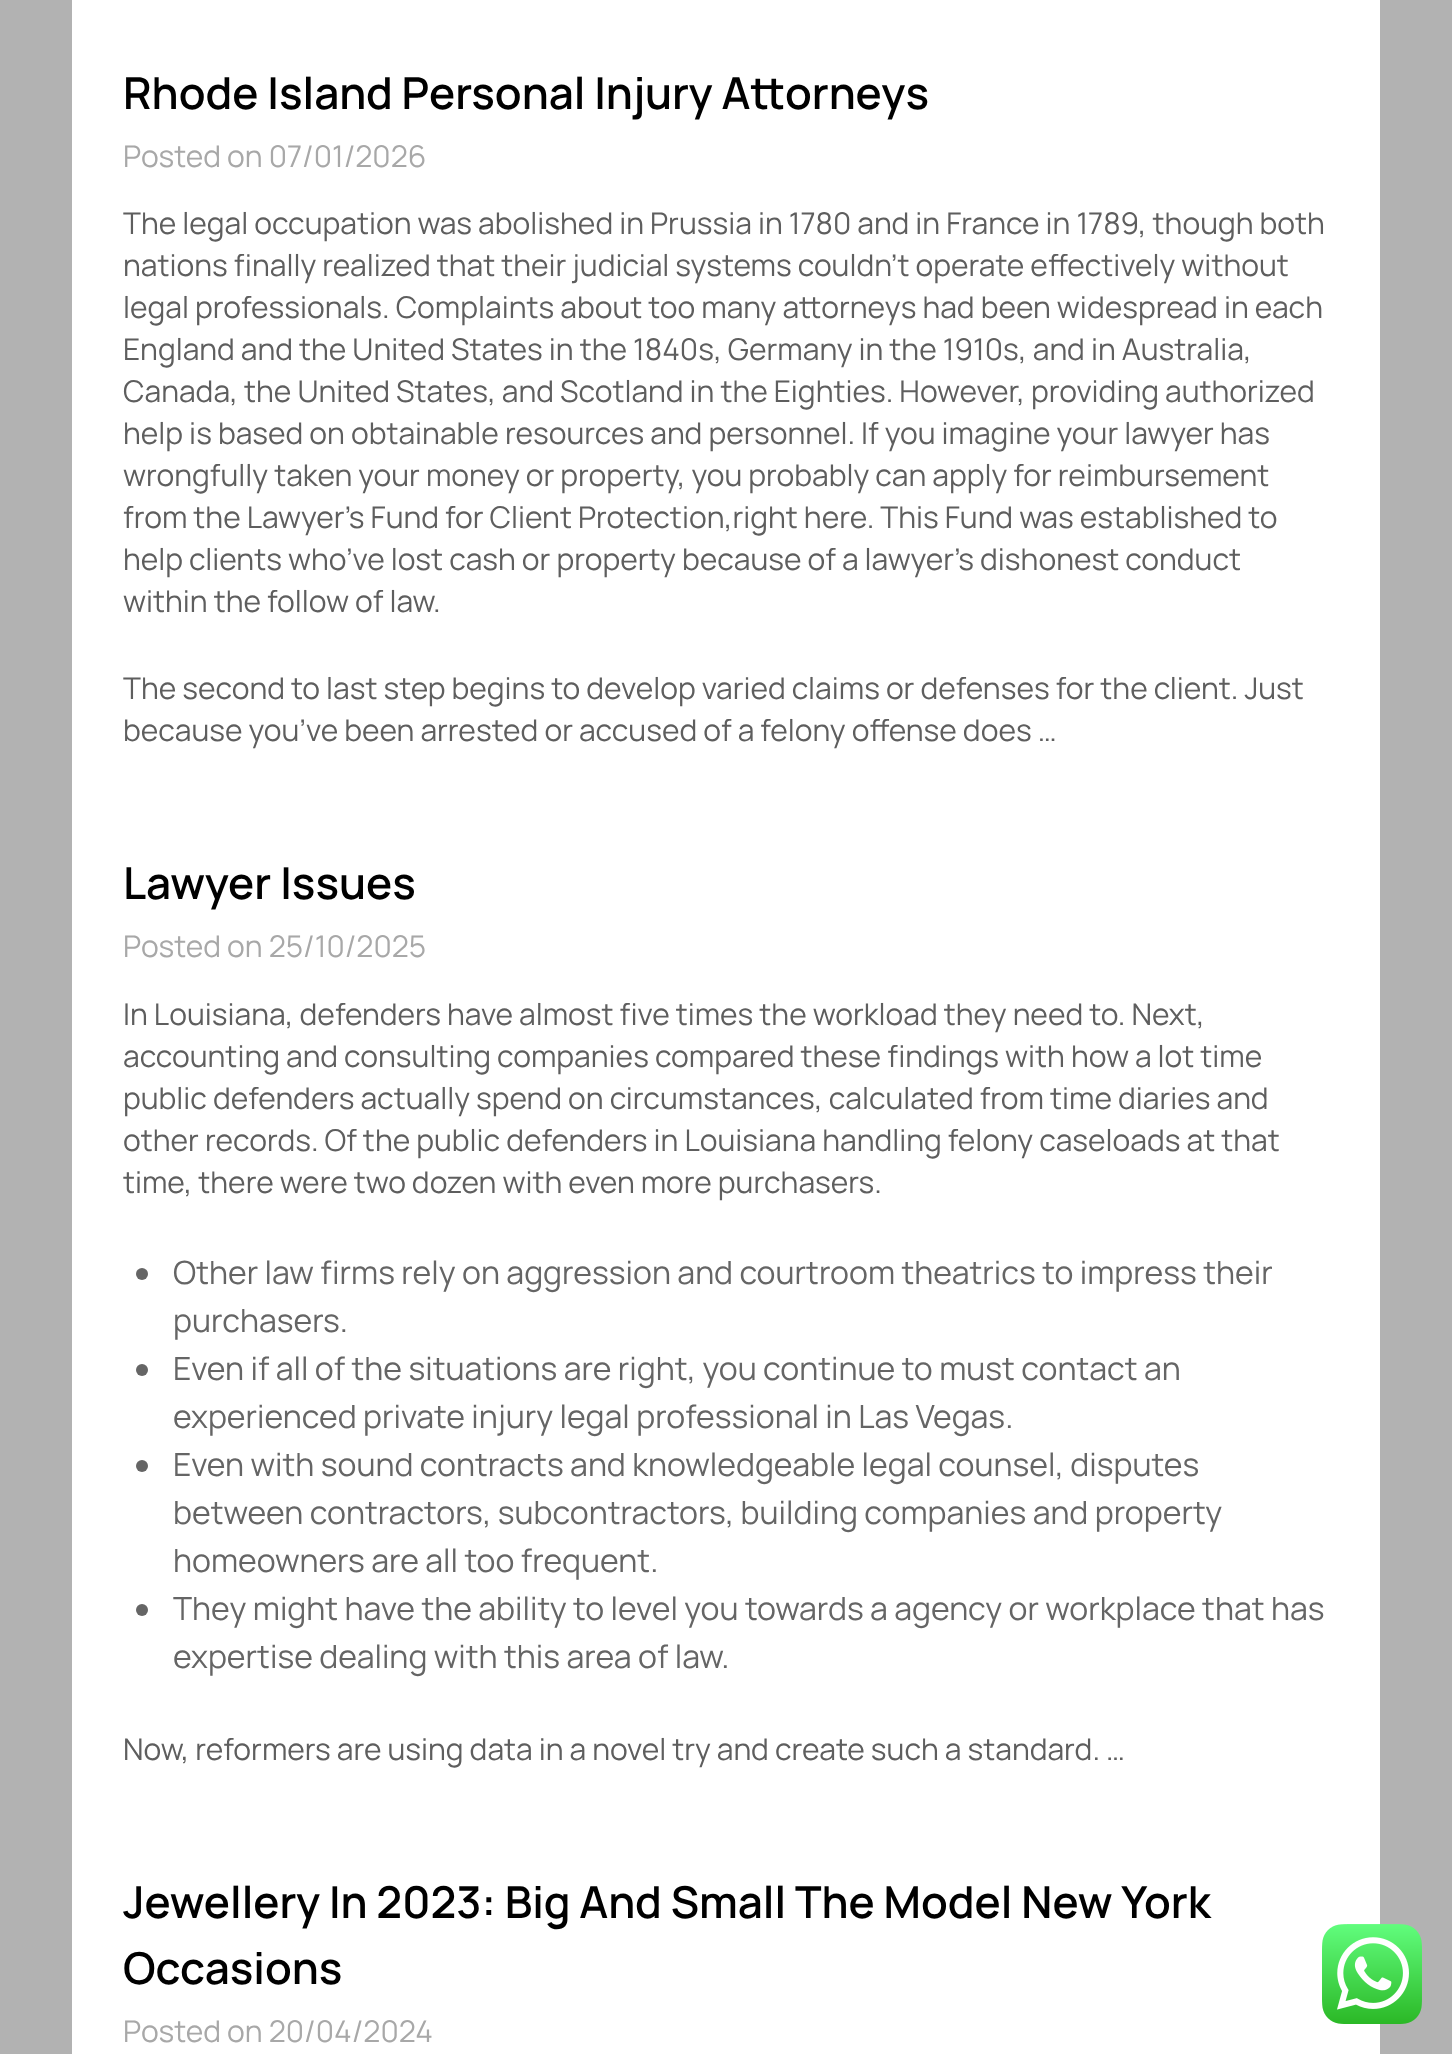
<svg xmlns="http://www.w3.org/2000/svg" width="1452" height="2054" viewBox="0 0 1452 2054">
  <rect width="100%" height="100%" fill="rgb(178,178,178)"/>
  <rect x="72" y="0" width="1308" height="2054" fill="rgb(255,255,255)"/>
  <text x="123" y="109" font-family="Manrope" font-size="44" font-weight="600" fill="rgb(0,0,0)">Rhode Island Personal Injury Attorneys</text>
  <text x="123" y="167" font-family="Manrope" font-size="30" fill="rgb(168,168,168)">Posted on 07/01/2026</text>
  <g font-family="Manrope" font-size="30" fill="rgb(94,94,94)">
    <text>
      <tspan x="123" y="234">The legal occupation was abolished in Prussia in 1780 and in France in 1789, though both</tspan>
      <tspan x="123" y="276">nations finally realized that their judicial systems couldn’t operate effectively without</tspan>
      <tspan x="123" y="318">legal professionals. Complaints about too many attorneys had been widespread in each</tspan>
      <tspan x="123" y="360">England and the United States in the 1840s, Germany in the 1910s, and in Australia,</tspan>
      <tspan x="123" y="402">Canada, the United States, and Scotland in the Eighties. However, providing authorized</tspan>
      <tspan x="123" y="444">help is based on obtainable resources and personnel. If you imagine your lawyer has</tspan>
      <tspan x="123" y="486">wrongfully taken your money or property, you probably can apply for reimbursement</tspan>
      <tspan x="123" y="528">from the Lawyer’s Fund for Client Protection,right here. This Fund was established to</tspan>
      <tspan x="123" y="570">help clients who’ve lost cash or property because of a lawyer’s dishonest conduct</tspan>
      <tspan x="123" y="612">within the follow of law.</tspan>
    </text>
    <text>
      <tspan x="123" y="699">The second to last step begins to develop varied claims or defenses for the client. Just</tspan>
      <tspan x="123" y="741">because you’ve been arrested or accused of a felony offense does …</tspan>
    </text>
  </g>
  <text x="123" y="899" font-family="Manrope" font-size="44" font-weight="600" fill="rgb(0,0,0)">Lawyer Issues</text>
  <text x="123" y="957" font-family="Manrope" font-size="30" fill="rgb(168,168,168)">Posted on 25/10/2025</text>
  <g font-family="Manrope" font-size="30" fill="rgb(94,94,94)">
    <text>
      <tspan x="123" y="1025">In Louisiana, defenders have almost five times the workload they need to. Next,</tspan>
      <tspan x="123" y="1067">accounting and consulting companies compared these findings with how a lot time</tspan>
      <tspan x="123" y="1109">public defenders actually spend on circumstances, calculated from time diaries and</tspan>
      <tspan x="123" y="1151">other records. Of the public defenders in Louisiana handling felony caseloads at that</tspan>
      <tspan x="123" y="1193">time, there were two dozen with even more purchasers.</tspan>
    </text>
  </g>
  <circle cx="142" cy="1274" r="6" fill="rgb(101,101,101)"/>
  <g font-family="Manrope" font-size="32" fill="rgb(101,101,101)">
    <text>
      <tspan x="173" y="1284">Other law firms rely on aggression and courtroom theatrics to impress their</tspan>
      <tspan x="173" y="1332">purchasers.</tspan>
    </text>
  </g>
  <circle cx="142" cy="1370" r="6" fill="rgb(101,101,101)"/>
  <g font-family="Manrope" font-size="32" fill="rgb(101,101,101)">
    <text>
      <tspan x="173" y="1380">Even if all of the situations are right, you continue to must contact an</tspan>
      <tspan x="173" y="1428">experienced private injury legal professional in Las Vegas.</tspan>
    </text>
  </g>
  <circle cx="142" cy="1466" r="6" fill="rgb(101,101,101)"/>
  <g font-family="Manrope" font-size="32" fill="rgb(101,101,101)">
    <text>
      <tspan x="173" y="1476">Even with sound contracts and knowledgeable legal counsel, disputes</tspan>
      <tspan x="173" y="1524">between contractors, subcontractors, building companies and property</tspan>
      <tspan x="173" y="1572">homeowners are all too frequent.</tspan>
    </text>
  </g>
  <circle cx="142" cy="1610" r="6" fill="rgb(101,101,101)"/>
  <g font-family="Manrope" font-size="32" fill="rgb(101,101,101)">
    <text>
      <tspan x="173" y="1620">They might have the ability to level you towards a agency or workplace that has</tspan>
      <tspan x="173" y="1668">expertise dealing with this area of law.</tspan>
    </text>
  </g>
  <text x="123" y="1760" font-family="Manrope" font-size="30" fill="rgb(94,94,94)">Now, reformers are using data in a novel try and create such a standard. …</text>
  <g font-family="Manrope" font-size="44" font-weight="600" fill="rgb(0,0,0)">
    <text>
      <tspan x="123" y="1918">Jewellery In 2023: Big And Small The Model New York</tspan>
      <tspan x="123" y="1984">Occasions</tspan>
    </text>
  </g>
  <text x="123" y="2042" font-family="Manrope" font-size="30" fill="rgb(168,168,168)">Posted on 20/04/2024</text>
  <image x="1322" y="1924" width="100" height="100" href="pic1.png"/>
</svg>
